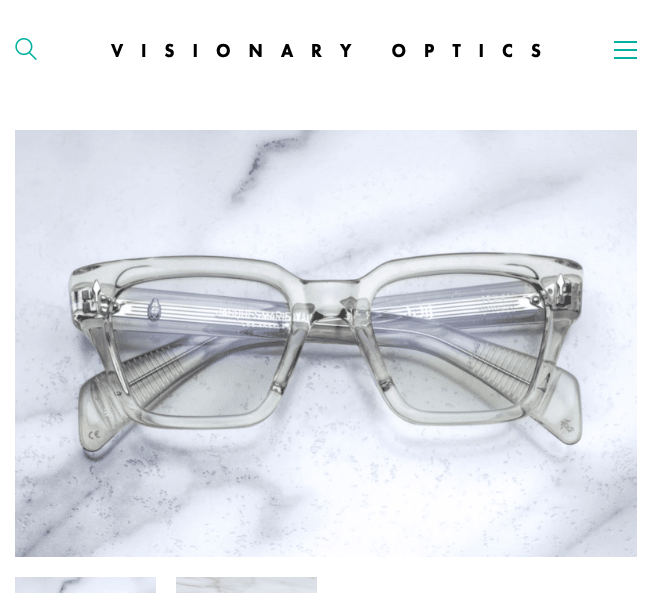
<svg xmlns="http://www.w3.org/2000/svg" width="652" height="593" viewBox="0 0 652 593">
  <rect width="100%" height="100%" fill="rgb(255,255,255)"/>
  <image x="15" y="38" width="22" height="22" href="pic1.png"/>
  <image x="111" y="43" width="430" height="15" href="pic2.png"/>
  <rect x="614" y="41" width="23" height="2" fill="rgb(0,177,158)"/>
  <rect x="614" y="49" width="23" height="2" fill="rgb(0,177,158)"/>
  <rect x="614" y="57" width="23" height="2" fill="rgb(0,177,158)"/>
  <image x="15" y="130" width="622" height="427" href="pic3.png"/>
  <image x="15" y="577" width="141" height="16" href="pic4.png"/>
  <image x="176" y="577" width="141" height="16" href="pic5.png"/>
</svg>
